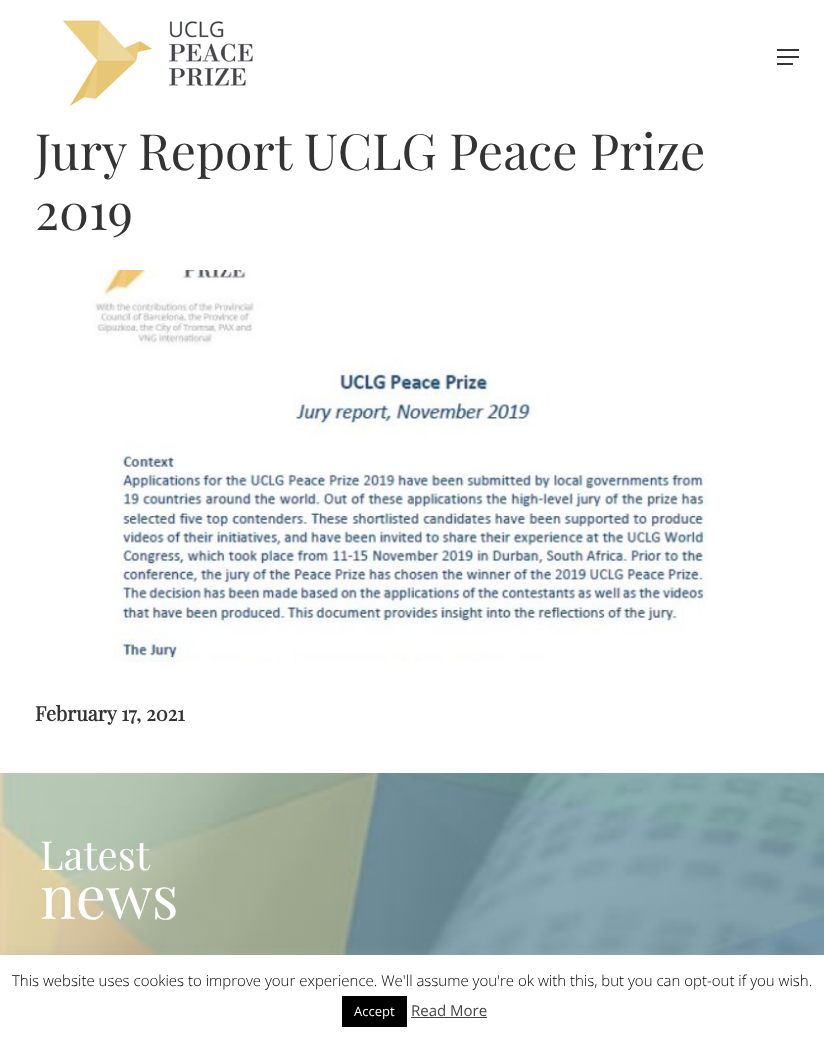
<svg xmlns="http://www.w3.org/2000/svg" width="824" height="1039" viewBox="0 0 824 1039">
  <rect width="100%" height="100%" fill="rgb(255,255,255)"/>
  <image x="62" y="20" width="191" height="87" href="pic1.png"/>
  <rect x="777" y="56" width="22" height="2" fill="rgb(51,51,51)"/>
  <rect x="777" y="49" width="22" height="2" fill="rgb(51,51,51)"/>
  <rect x="777" y="63" width="16" height="2" fill="rgb(51,51,51)"/>
  <g font-family="Playfair Display" font-size="50" fill="rgb(51,51,51)">
    <text>
      <tspan x="35" y="170">Jury Report UCLG Peace Prize</tspan>
      <tspan x="35" y="230">2019</tspan>
    </text>
  </g>
  <image x="90" y="270" width="619" height="392" href="pic2.png"/>
  <text x="35" y="721" font-family="Playfair Display" font-size="20" font-weight="bold" fill="rgb(51,51,51)">February 17, 2021</text>
  <image x="0" y="773" width="824" height="182" href="pic3.png"/>
  <text x="40" y="870" font-family="Playfair Display" font-size="40" fill="rgb(255,255,255)">Latest</text>
  <text x="40" y="919" font-family="Playfair Display" font-size="60" fill="rgb(255,255,255)">news</text>
  <rect x="0" y="954" width="824" height="84" fill="rgba(172,171,171,0.3)" filter="blur(5px)"/>
  <rect x="0" y="955" width="824" height="84" fill="rgb(255,255,255)"/>
  <text x="12" y="986" font-family="Open Sans" font-size="15" font-weight="300" fill="rgb(0,0,0)">This website uses cookies to improve your experience. We'll assume you're ok with this, but you can opt-out if you wish.</text>
  <rect x="342" y="996" width="65" height="31" fill="rgb(0,0,0)"/>
  <text x="354" y="1016" font-family="Open Sans" font-size="13" fill="rgb(255,255,255)">Accept</text>
  <text x="411" y="1016" font-family="Open Sans" font-size="15" fill="rgb(68,68,68)">Read More</text>
  <rect x="411" y="1017" width="76" height="1" fill="rgb(68,68,68)"/>
</svg>
